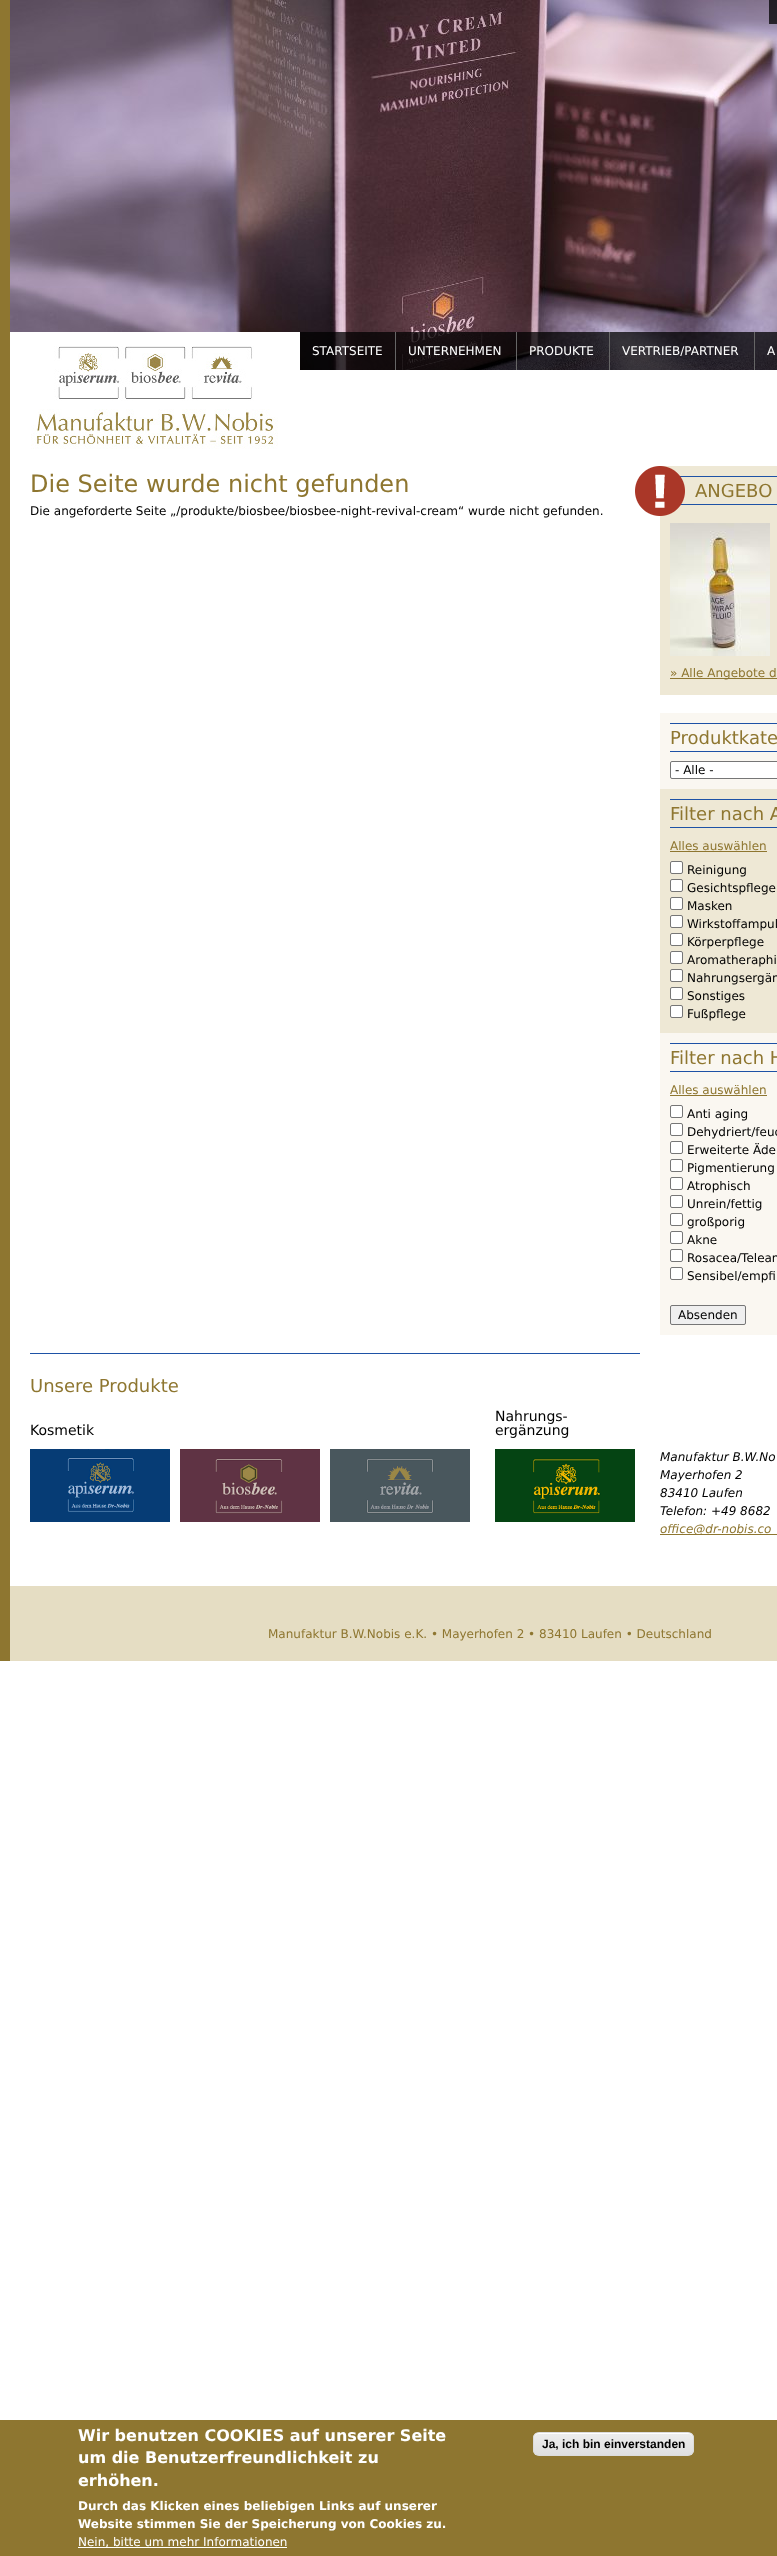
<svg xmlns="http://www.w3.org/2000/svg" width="777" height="2556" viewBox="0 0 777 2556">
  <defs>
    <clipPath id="clip1"><rect x="533" y="2432" width="161" height="24" rx="6"/></clipPath>
    <linearGradient id="g1" gradientUnits="userSpaceOnUse" x1="614" y1="2433" x2="614" y2="2455"><stop offset="0.05" stop-color="rgb(237,237,237)"/><stop offset="1" stop-color="rgb(223,223,223)"/></linearGradient>
  </defs>
  <rect width="100%" height="100%" fill="rgb(255,255,255)"/>
  <rect x="0" y="0" width="10" height="1661" fill="rgb(142,118,48)"/>
  <image x="10" y="0" width="767" height="370" href="pic1.png"/>
  <rect x="769" y="0" width="8" height="24" fill="rgba(0,0,0,0.75)"/>
  <rect x="10" y="332" width="290" height="38" fill="rgb(255,255,255)"/>
  <image x="31" y="346" width="247" height="103" href="pic2.png"/>
  <rect x="300" y="332" width="477" height="38" fill="rgba(0,0,0,0.75)"/>
  <text x="312" y="355" font-family="DejaVu Sans" font-size="12" fill="rgb(255,255,255)">STARTSEITE</text>
  <rect x="395" y="332" width="1" height="38" fill="rgb(102,102,102)"/>
  <text x="408" y="355" font-family="DejaVu Sans" font-size="12" fill="rgb(255,255,255)">UNTERNEHMEN</text>
  <rect x="516" y="332" width="1" height="38" fill="rgb(102,102,102)"/>
  <text x="529" y="355" font-family="DejaVu Sans" font-size="12" fill="rgb(255,255,255)">PRODUKTE</text>
  <rect x="609" y="332" width="1" height="38" fill="rgb(102,102,102)"/>
  <text x="622" y="355" font-family="DejaVu Sans" font-size="12" fill="rgb(255,255,255)">VERTRIEB/PARTNER</text>
  <rect x="754" y="332" width="1" height="38" fill="rgb(102,102,102)"/>
  <text x="767" y="355" font-family="DejaVu Sans" font-size="12" fill="rgb(255,255,255)">A</text>
  <text x="30" y="492" font-family="DejaVu Sans" font-size="24" fill="rgb(142,118,48)">Die Seite wurde nicht gefunden</text>
  <text x="30" y="515" font-family="DejaVu Sans" font-size="12" fill="rgb(0,0,0)">Die angeforderte Seite „/produkte/biosbee/biosbee-night-revival-cream“ wurde nicht gefunden.</text>
  <rect x="660" y="466" width="117" height="229" fill="rgb(238,232,213)"/>
  <rect x="680" y="476" width="97" height="1" fill="rgb(30,82,166)"/>
  <rect x="680" y="504" width="97" height="1" fill="rgb(30,82,166)"/>
  <image x="635" y="466" width="50" height="50" href="pic3.png"/>
  <text x="695" y="497" font-family="DejaVu Sans" font-size="18" fill="rgb(142,118,48)">ANGEBO</text>
  <image x="670" y="523" width="100" height="133" href="pic4.png"/>
  <rect x="670" y="678" width="107" height="1" fill="rgb(142,118,48)"/>
  <text x="670" y="677" font-family="DejaVu Sans" font-size="12" fill="rgb(142,118,48)">» Alle Angebote d</text>
  <rect x="660" y="713" width="117" height="76" fill="rgb(250,247,241)"/>
  <rect x="670" y="723" width="107" height="1" fill="rgb(30,82,166)"/>
  <rect x="670" y="751" width="107" height="1" fill="rgb(30,82,166)"/>
  <text x="670" y="744" font-family="DejaVu Sans" font-size="18" fill="rgb(142,118,48)">Produktkate</text>
  <rect x="670.5" y="761.5" width="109" height="17" rx="1.5" fill="rgb(255,255,255)" stroke="rgb(118,118,118)"/>
  <text x="675" y="774" font-family="DejaVu Sans" font-size="12" fill="rgb(0,0,0)">- Alle -</text>
  <rect x="660" y="789" width="117" height="244" fill="rgb(238,232,213)"/>
  <rect x="670" y="799" width="107" height="1" fill="rgb(30,82,166)"/>
  <rect x="670" y="827" width="107" height="1" fill="rgb(30,82,166)"/>
  <text x="670" y="820" font-family="DejaVu Sans" font-size="18" fill="rgb(142,118,48)">Filter nach A</text>
  <text x="670" y="850" font-family="DejaVu Sans" font-size="12" fill="rgb(142,118,48)">Alles auswählen</text>
  <rect x="670" y="851" width="97" height="1" fill="rgb(142,118,48)"/>
  <rect x="670.5" y="861.5" width="12" height="12" rx="1.5" fill="rgb(255,255,255)" stroke="rgb(118,118,118)"/>
  <text x="687" y="874" font-family="DejaVu Sans" font-size="12" fill="rgb(0,0,0)">Reinigung</text>
  <rect x="670.5" y="879.5" width="12" height="12" rx="1.5" fill="rgb(255,255,255)" stroke="rgb(118,118,118)"/>
  <text x="687" y="892" font-family="DejaVu Sans" font-size="12" fill="rgb(0,0,0)">Gesichtspflege</text>
  <rect x="670.5" y="897.5" width="12" height="12" rx="1.5" fill="rgb(255,255,255)" stroke="rgb(118,118,118)"/>
  <text x="687" y="910" font-family="DejaVu Sans" font-size="12" fill="rgb(0,0,0)">Masken</text>
  <rect x="670.5" y="915.5" width="12" height="12" rx="1.5" fill="rgb(255,255,255)" stroke="rgb(118,118,118)"/>
  <text x="687" y="928" font-family="DejaVu Sans" font-size="12" fill="rgb(0,0,0)">Wirkstoffampul</text>
  <rect x="670.5" y="933.5" width="12" height="12" rx="1.5" fill="rgb(255,255,255)" stroke="rgb(118,118,118)"/>
  <text x="687" y="946" font-family="DejaVu Sans" font-size="12" fill="rgb(0,0,0)">Körperpflege</text>
  <rect x="670.5" y="951.5" width="12" height="12" rx="1.5" fill="rgb(255,255,255)" stroke="rgb(118,118,118)"/>
  <text x="687" y="964" font-family="DejaVu Sans" font-size="12" fill="rgb(0,0,0)">Aromatheraphi</text>
  <rect x="670.5" y="969.5" width="12" height="12" rx="1.5" fill="rgb(255,255,255)" stroke="rgb(118,118,118)"/>
  <text x="687" y="982" font-family="DejaVu Sans" font-size="12" fill="rgb(0,0,0)">Nahrungsergän</text>
  <rect x="670.5" y="987.5" width="12" height="12" rx="1.5" fill="rgb(255,255,255)" stroke="rgb(118,118,118)"/>
  <text x="687" y="1000" font-family="DejaVu Sans" font-size="12" fill="rgb(0,0,0)">Sonstiges</text>
  <rect x="670.5" y="1005.5" width="12" height="12" rx="1.5" fill="rgb(255,255,255)" stroke="rgb(118,118,118)"/>
  <text x="687" y="1018" font-family="DejaVu Sans" font-size="12" fill="rgb(0,0,0)">Fußpflege</text>
  <rect x="660" y="1033" width="117" height="302" fill="rgb(250,247,241)"/>
  <rect x="670" y="1043" width="107" height="1" fill="rgb(30,82,166)"/>
  <rect x="670" y="1071" width="107" height="1" fill="rgb(30,82,166)"/>
  <text x="670" y="1064" font-family="DejaVu Sans" font-size="18" fill="rgb(142,118,48)">Filter nach H</text>
  <text x="670" y="1094" font-family="DejaVu Sans" font-size="12" fill="rgb(142,118,48)">Alles auswählen</text>
  <rect x="670" y="1095" width="97" height="1" fill="rgb(142,118,48)"/>
  <rect x="670.5" y="1105.5" width="12" height="12" rx="1.5" fill="rgb(255,255,255)" stroke="rgb(118,118,118)"/>
  <text x="687" y="1118" font-family="DejaVu Sans" font-size="12" fill="rgb(0,0,0)">Anti aging</text>
  <rect x="670.5" y="1123.5" width="12" height="12" rx="1.5" fill="rgb(255,255,255)" stroke="rgb(118,118,118)"/>
  <text x="687" y="1136" font-family="DejaVu Sans" font-size="12" fill="rgb(0,0,0)">Dehydriert/feuc</text>
  <rect x="670.5" y="1141.5" width="12" height="12" rx="1.5" fill="rgb(255,255,255)" stroke="rgb(118,118,118)"/>
  <text x="687" y="1154" font-family="DejaVu Sans" font-size="12" fill="rgb(0,0,0)">Erweiterte Äde</text>
  <rect x="670.5" y="1159.5" width="12" height="12" rx="1.5" fill="rgb(255,255,255)" stroke="rgb(118,118,118)"/>
  <text x="687" y="1172" font-family="DejaVu Sans" font-size="12" fill="rgb(0,0,0)">Pigmentierung</text>
  <rect x="670.5" y="1177.5" width="12" height="12" rx="1.5" fill="rgb(255,255,255)" stroke="rgb(118,118,118)"/>
  <text x="687" y="1190" font-family="DejaVu Sans" font-size="12" fill="rgb(0,0,0)">Atrophisch</text>
  <rect x="670.5" y="1195.5" width="12" height="12" rx="1.5" fill="rgb(255,255,255)" stroke="rgb(118,118,118)"/>
  <text x="687" y="1208" font-family="DejaVu Sans" font-size="12" fill="rgb(0,0,0)">Unrein/fettig</text>
  <rect x="670.5" y="1213.5" width="12" height="12" rx="1.5" fill="rgb(255,255,255)" stroke="rgb(118,118,118)"/>
  <text x="687" y="1226" font-family="DejaVu Sans" font-size="12" fill="rgb(0,0,0)">großporig</text>
  <rect x="670.5" y="1231.5" width="12" height="12" rx="1.5" fill="rgb(255,255,255)" stroke="rgb(118,118,118)"/>
  <text x="687" y="1244" font-family="DejaVu Sans" font-size="12" fill="rgb(0,0,0)">Akne</text>
  <rect x="670.5" y="1249.5" width="12" height="12" rx="1.5" fill="rgb(255,255,255)" stroke="rgb(118,118,118)"/>
  <text x="687" y="1262" font-family="DejaVu Sans" font-size="12" fill="rgb(0,0,0)">Rosacea/Telean</text>
  <rect x="670.5" y="1267.5" width="12" height="12" rx="1.5" fill="rgb(255,255,255)" stroke="rgb(118,118,118)"/>
  <text x="687" y="1280" font-family="DejaVu Sans" font-size="12" fill="rgb(0,0,0)">Sensibel/empfi</text>
  <rect x="670.5" y="1305.5" width="75" height="19" rx="1.5" fill="rgb(239,239,239)" stroke="rgb(118,118,118)"/>
  <text x="678" y="1319" font-family="DejaVu Sans" font-size="12" fill="rgb(0,0,0)">Absenden</text>
  <rect x="30" y="1353" width="610" height="1" fill="rgb(30,82,166)"/>
  <text x="30" y="1392" font-family="DejaVu Sans" font-size="18" fill="rgb(142,118,48)">Unsere Produkte</text>
  <text x="30" y="1435" font-family="DejaVu Sans" font-size="14" fill="rgb(0,0,0)">Kosmetik</text>
  <image x="30" y="1449" width="140" height="73" href="pic5.png"/>
  <image x="180" y="1449" width="140" height="73" href="pic6.png"/>
  <image x="330" y="1449" width="140" height="73" href="pic7.png"/>
  <g font-family="DejaVu Sans" font-size="14" fill="rgb(0,0,0)">
    <text>
      <tspan x="495" y="1421">Nahrungs-</tspan>
      <tspan x="495" y="1435">ergänzung</tspan>
    </text>
  </g>
  <image x="495" y="1449" width="140" height="73" href="pic8.png"/>
  <g font-family="DejaVu Sans" font-size="12" font-style="italic" fill="rgb(0,0,0)">
    <text>
      <tspan x="660" y="1461">Manufaktur B.W.No</tspan>
      <tspan x="660" y="1479">Mayerhofen 2</tspan>
      <tspan x="660" y="1497">83410 Laufen</tspan>
      <tspan x="660" y="1515">Telefon: +49 8682</tspan>
    </text>
  </g>
  <rect x="660" y="1534" width="117" height="1" fill="rgb(142,118,48)"/>
  <text x="660" y="1533" font-family="DejaVu Sans" font-size="12" font-style="italic" fill="rgb(142,118,48)">office@dr-nobis.co</text>
  <rect x="10" y="1586" width="767" height="75" fill="rgb(229,221,195)"/>
  <text x="268" y="1638" font-family="DejaVu Sans" font-size="12" fill="rgb(142,118,48)">Manufaktur B.W.Nobis e.K. • Mayerhofen 2 • 83410 Laufen • Deutschland</text>
  <rect x="0" y="2420" width="777" height="136" fill="rgb(142,118,48)"/>
  <g font-family="DejaVu Sans" font-size="16" font-weight="bold" fill="rgb(255,255,255)">
    <text>
      <tspan x="78" y="2441">Wir benutzen COOKIES auf unserer Seite</tspan>
      <tspan x="78" y="2463">um die Benutzerfreundlichkeit zu</tspan>
      <tspan x="78" y="2486">erhöhen.</tspan>
    </text>
  </g>
  <g font-family="DejaVu Sans" font-size="12" font-weight="bold" fill="rgb(255,255,255)">
    <text>
      <tspan x="78" y="2510">Durch das Klicken eines beliebigen Links auf unserer</tspan>
      <tspan x="78" y="2528">Website stimmen Sie der Speicherung von Cookies zu.</tspan>
    </text>
  </g>
  <rect x="78" y="2547" width="209" height="1" fill="rgb(255,255,255)"/>
  <text x="78" y="2546" font-family="DejaVu Sans" font-size="12" fill="rgb(255,255,255)">Nein, bitte um mehr Informationen</text>
  <g clip-path="url(#clip1)">
    <rect x="533" y="2433" width="161" height="22" fill="url(#g1)"/>
  </g>
  <path d="M539 2434H688C691 2434 693 2436 693 2439V2438C693 2435 691 2433 688 2433H539C536 2433 534 2435 534 2438V2439C534 2436 536 2434 539 2434Z" fill="rgb(255,255,255)"/>
  <rect x="533.5" y="2432.5" width="160" height="23" rx="5.5" fill="none" stroke="rgb(220,220,220)"/>
  <text x="542" y="2448" font-family="Liberation Sans" font-size="12" font-weight="bold" fill="rgb(0,0,0)">Ja, ich bin einverstanden</text>
</svg>
